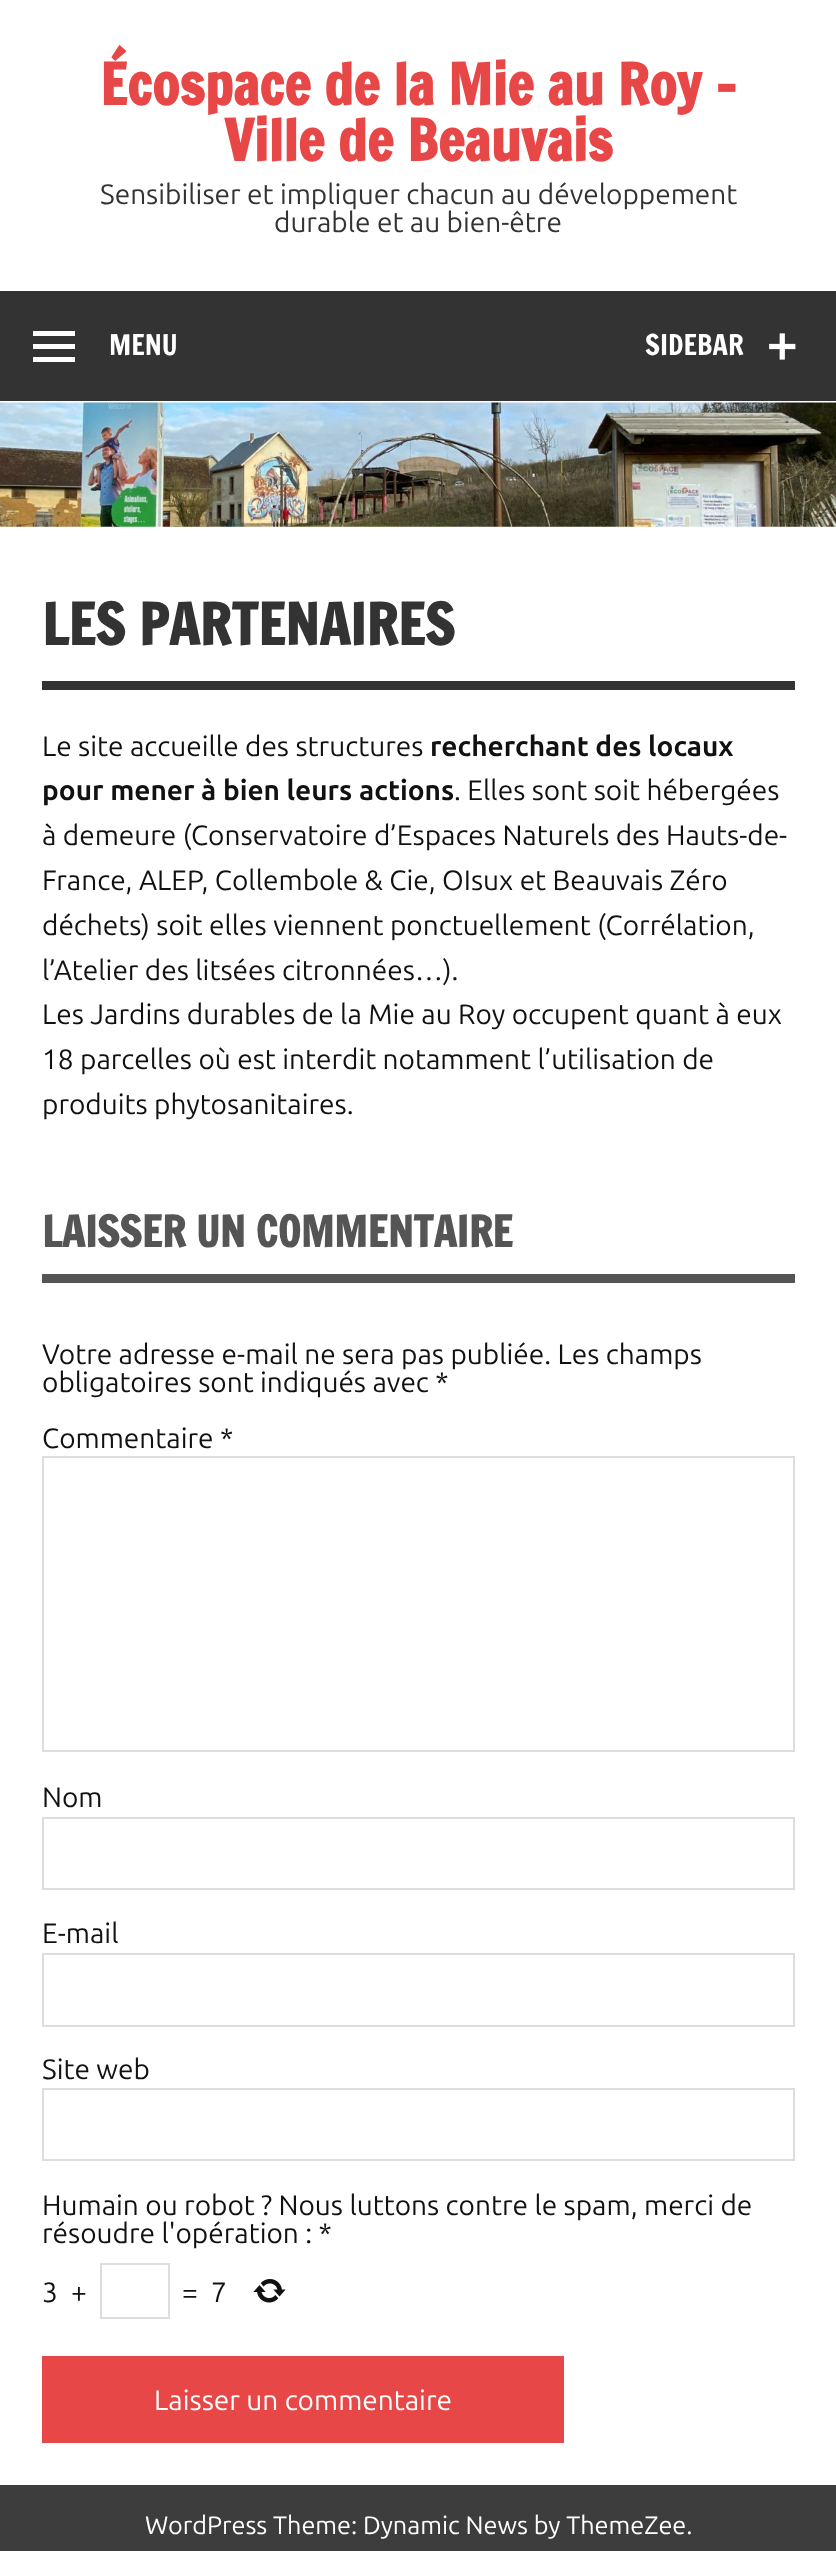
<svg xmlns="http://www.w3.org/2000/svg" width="836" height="2551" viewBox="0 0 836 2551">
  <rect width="100%" height="100%" fill="rgb(255,255,255)"/>
  <g font-family="Francois One" font-size="56" font-weight="bold" fill="rgb(232,71,71)">
    <text x="100" y="105">Écospace de la Mie au Roy –</text>
    <text x="224" y="161">Ville de Beauvais</text>
  </g>
  <g font-family="Ubuntu" font-size="28" fill="rgb(51,51,51)">
    <text x="100" y="204">Sensibiliser et impliquer chacun au développement</text>
    <text x="274" y="232">durable et au bien-être</text>
  </g>
  <rect x="0" y="291" width="836" height="110" fill="rgb(51,51,51)"/>
  <path d="M33 362V357H75V362ZM33 331H75V336H33ZM33 349V344H75V349Z" fill="rgb(255,255,255)"/>
  <g font-family="Francois One" font-size="28" fill="rgb(255,255,255)">
    <text x="109" y="355">MENU</text>
    <text x="645" y="355">SIDEBAR</text>
  </g>
  <image x="769" y="333" width="27" height="27" href="pic1.png"/>
  <image x="0" y="402" width="836" height="125" href="pic2.png"/>
  <rect x="42" y="681" width="753" height="9" fill="rgb(51,51,51)"/>
  <text x="42" y="645" font-family="Francois One" font-size="56" font-weight="bold" fill="rgb(51,51,51)">LES PARTENAIRES</text>
  <text x="42" y="756" font-family="Ubuntu" font-size="28" fill="rgb(17,17,17)">Le site accueille des structures</text>
  <g font-family="Ubuntu" font-size="28" font-weight="bold" fill="rgb(17,17,17)">
    <text x="430" y="756">recherchant des locaux</text>
    <text x="42" y="800">pour mener à bien leurs actions</text>
  </g>
  <g font-family="Ubuntu" font-size="28" fill="rgb(17,17,17)">
    <text x="454" y="800">. Elles sont soit hébergées</text>
    <text>
      <tspan x="42" y="845">à demeure (Conservatoire d’Espaces Naturels des Hauts-de-</tspan>
      <tspan x="42" y="890">France, ALEP, Collembole &amp; Cie, OIsux et Beauvais Zéro</tspan>
      <tspan x="42" y="935">déchets) soit elles viennent ponctuellement (Corrélation,</tspan>
      <tspan x="42" y="980">l’Atelier des litsées citronnées…).</tspan>
      <tspan x="42" y="1024">Les Jardins durables de la Mie au Roy occupent quant à eux</tspan>
      <tspan x="42" y="1069">18 parcelles où est interdit notamment l’utilisation de</tspan>
      <tspan x="42" y="1114">produits phytosanitaires.</tspan>
    </text>
  </g>
  <rect x="42" y="1274" width="753" height="9" fill="rgb(85,85,85)"/>
  <text x="42" y="1247" font-family="Francois One" font-size="42" font-weight="bold" fill="rgb(85,85,85)">LAISSER UN COMMENTAIRE</text>
  <g font-family="Ubuntu" font-size="28" fill="rgb(17,17,17)">
    <text>
      <tspan x="42" y="1364">Votre adresse e-mail ne sera pas publiée. Les champs</tspan>
      <tspan x="42" y="1392">obligatoires sont indiqués avec *</tspan>
    </text>
    <text x="42" y="1448">Commentaire *</text>
  </g>
  <rect x="43" y="1457" width="751" height="294" fill="none" stroke="rgb(221,221,221)" stroke-width="2"/>
  <text x="42" y="1807" font-family="Ubuntu" font-size="28" fill="rgb(17,17,17)">Nom</text>
  <rect x="43" y="1818" width="751" height="71" fill="none" stroke="rgb(221,221,221)" stroke-width="2"/>
  <text x="42" y="1943" font-family="Ubuntu" font-size="28" fill="rgb(17,17,17)">E-mail</text>
  <rect x="43" y="1954" width="751" height="72" fill="none" stroke="rgb(221,221,221)" stroke-width="2"/>
  <text x="42" y="2079" font-family="Ubuntu" font-size="28" fill="rgb(17,17,17)">Site web</text>
  <rect x="43" y="2089" width="751" height="71" fill="none" stroke="rgb(221,221,221)" stroke-width="2"/>
  <g font-family="Ubuntu" font-size="28" fill="rgb(17,17,17)">
    <text>
      <tspan x="42" y="2215">Humain ou robot ? Nous luttons contre le spam, merci de</tspan>
      <tspan x="42" y="2243">résoudre l'opération : *</tspan>
    </text>
    <text x="42" y="2302">3</text>
    <text x="71" y="2302">+</text>
  </g>
  <rect x="101" y="2264" width="68" height="54" fill="none" stroke="rgb(221,221,221)" stroke-width="2"/>
  <g font-family="Ubuntu" font-size="28" fill="rgb(17,17,17)">
    <text x="182" y="2302">=</text>
    <text x="211" y="2302">7</text>
  </g>
  <image x="253" y="2279" width="33" height="24" href="pic3.png"/>
  <rect x="42" y="2356" width="522" height="87" fill="rgb(232,71,71)"/>
  <text x="154" y="2410" font-family="Ubuntu" font-size="28" fill="rgb(255,255,255)">Laisser un commentaire</text>
  <rect x="0" y="2485" width="836" height="66" fill="rgb(61,61,61)"/>
  <text x="145" y="2534" font-family="Ubuntu" font-size="25.2" fill="rgb(255,255,255)">WordPress Theme: Dynamic News by ThemeZee.</text>
</svg>
